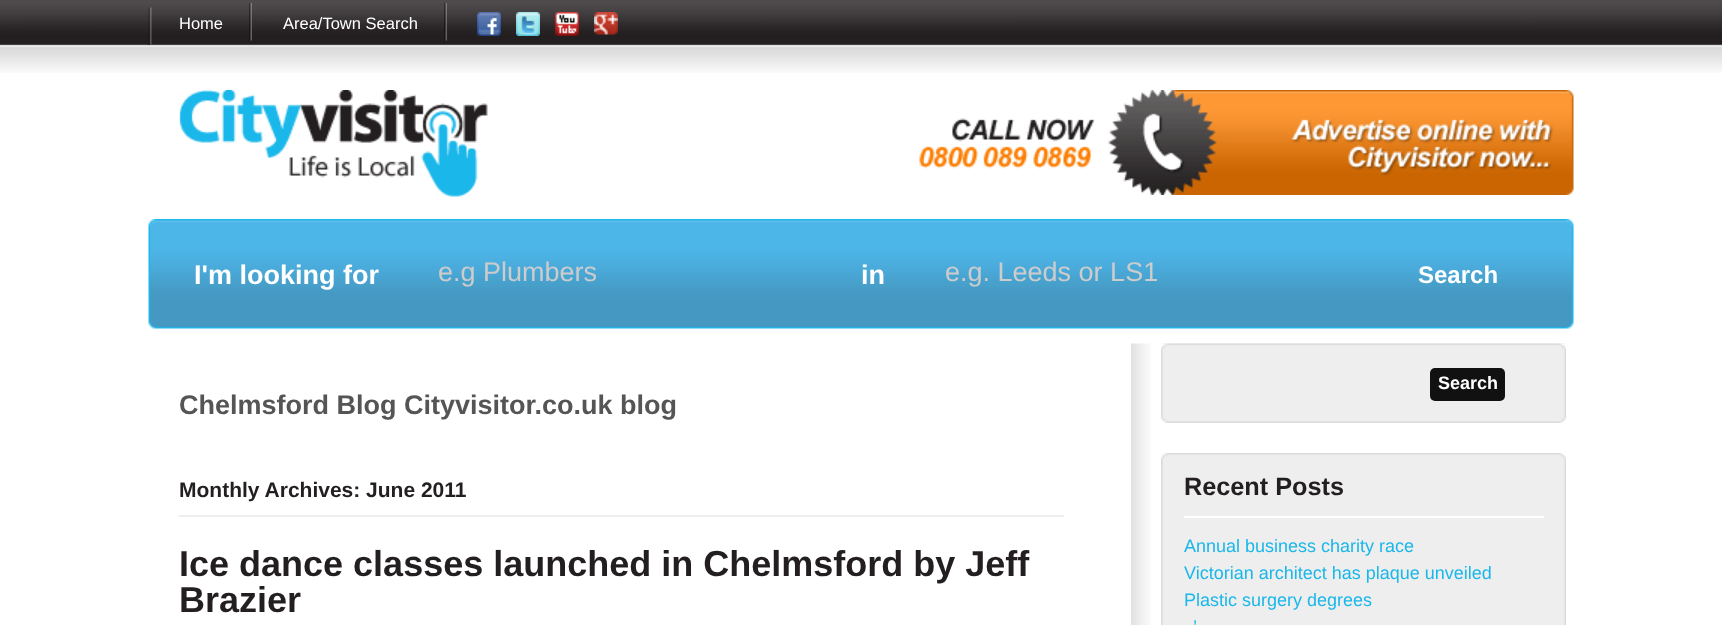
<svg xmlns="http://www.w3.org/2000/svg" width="1722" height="625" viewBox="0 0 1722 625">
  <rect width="100%" height="100%" fill="rgb(255,255,255)"/>
  <image x="0" y="0" width="1722" height="73" href="pic1.png"/>
  <image x="148" y="7" width="4" height="38" href="pic2.png"/>
  <image x="249" y="3" width="3" height="38" href="pic3.png"/>
  <text x="179" y="29" font-family="Liberation Sans" font-size="16.5" fill="rgb(255,255,255)">Home</text>
  <image x="444" y="3" width="3" height="38" href="pic4.png"/>
  <text x="283" y="29" font-family="Liberation Sans" font-size="16.5" fill="rgb(255,255,255)">Area/Town Search</text>
  <image x="477" y="12" width="24" height="24" href="pic5.png"/>
  <image x="516" y="12" width="24" height="24" href="pic6.png"/>
  <image x="555" y="12" width="24" height="24" href="pic7.png"/>
  <image x="594" y="12" width="24" height="23" href="pic8.png"/>
  <image x="179" y="90" width="309" height="107" href="pic9.png"/>
  <image x="919" y="90" width="655" height="105" href="pic10.png"/>
  <image x="148" y="219" width="1426" height="110" href="pic11.png"/>
  <text x="194" y="284" font-family="Liberation Sans" font-size="27" font-weight="bold" fill="rgb(255,255,255)">I'm looking for</text>
  <text x="438" y="281" font-family="Liberation Sans" font-size="27" fill="rgb(204,204,204)">e.g Plumbers</text>
  <text x="861" y="284" font-family="Liberation Sans" font-size="27" font-weight="bold" fill="rgb(255,255,255)">in</text>
  <text x="945" y="281" font-family="Liberation Sans" font-size="27" fill="rgb(204,204,204)">e.g. Leeds or LS1</text>
  <text x="1418" y="283" font-family="Liberation Sans" font-size="24" font-weight="bold" fill="rgb(255,255,255)">Search</text>
  <text x="179" y="414" font-family="Liberation Sans" font-size="27" font-weight="bold" fill="rgb(85,85,85)">Chelmsford Blog Cityvisitor.co.uk blog</text>
  <rect x="179" y="515" width="885" height="2" fill="rgb(238,238,238)"/>
  <text x="179" y="497" font-family="Liberation Sans" font-size="21" font-weight="bold" fill="rgb(35,31,32)">Monthly Archives: June 2011</text>
  <g font-family="Liberation Sans" font-size="36" font-weight="bold" fill="rgb(35,31,32)">
    <text>
      <tspan x="179" y="576">Ice dance classes launched in Chelmsford by Jeff</tspan>
      <tspan x="179" y="612">Brazier</tspan>
    </text>
  </g>
  <image x="1131" y="343" width="20" height="282" href="pic12.png"/>
  <image x="1161" y="343" width="405" height="80" href="pic13.png"/>
  <image x="1161" y="343" width="405" height="7" href="pic14.png"/>
  <rect x="1430" y="368" width="75" height="33" rx="5" fill="rgb(17,17,17)"/>
  <text x="1438" y="389" font-family="Liberation Sans" font-size="18" font-weight="bold" fill="rgb(255,255,255)">Search</text>
  <image x="1161" y="459" width="405" height="166" href="pic15.png"/>
  <image x="1161" y="453" width="405" height="6" href="pic16.png"/>
  <rect x="1184" y="516" width="360" height="2" fill="rgb(255,255,255)"/>
  <text x="1184" y="495" font-family="Liberation Sans" font-size="25.25" font-weight="bold" fill="rgb(35,31,32)">Recent Posts</text>
  <g font-family="Liberation Sans" font-size="18" fill="rgb(26,183,234)">
    <text>
      <tspan x="1184" y="552">Annual business charity race</tspan>
      <tspan x="1184" y="579">Victorian architect has plaque unveiled</tspan>
      <tspan x="1184" y="606">Plastic surgery degrees</tspan>
    </text>
    <text x="1193" y="633">’</text>
  </g>
</svg>
